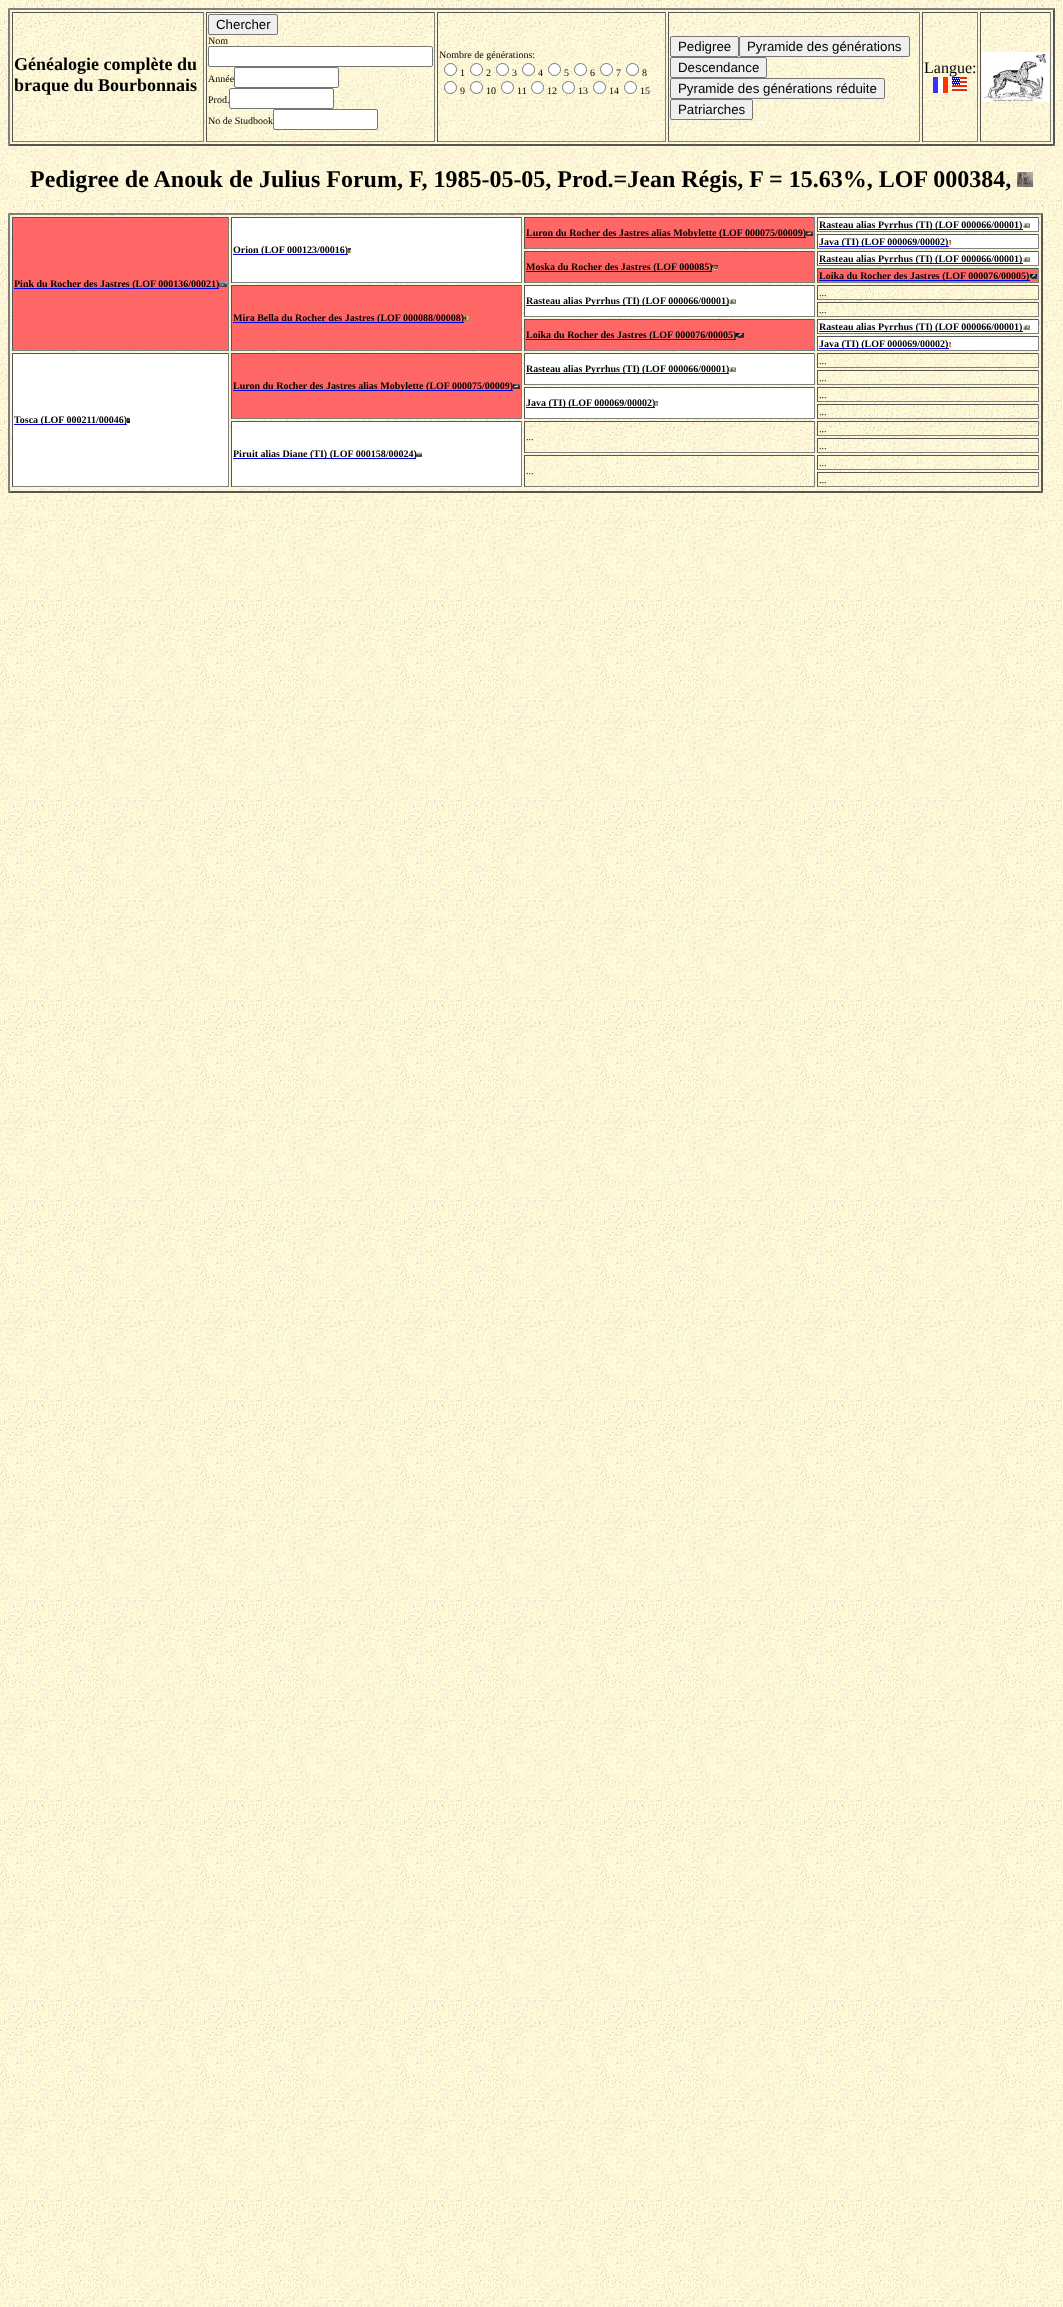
<svg xmlns="http://www.w3.org/2000/svg" width="1063" height="2307" viewBox="0 0 1063 2307">
  <rect width="100%" height="100%" fill="rgb(255,255,255)"/>
  <image x="0" y="0" width="1063" height="2307" href="pic1.png"/>
  <path d="M8 8H1055L1053 10H10Z" fill="rgb(128,128,128)"/>
  <path d="M1055 8V146L1053 144V10Z" fill="rgb(85,85,85)"/>
  <path d="M1055 146H8L10 144H1053Z" fill="rgb(85,85,85)"/>
  <path d="M8 146V8L10 10V144Z" fill="rgb(128,128,128)"/>
  <rect x="12" y="12" width="192" height="1" fill="rgb(85,85,85)"/>
  <rect x="203" y="12" width="1" height="130" fill="rgb(128,128,128)"/>
  <rect x="12" y="141" width="192" height="1" fill="rgb(128,128,128)"/>
  <rect x="12" y="12" width="1" height="130" fill="rgb(85,85,85)"/>
  <g font-family="Liberation Serif" font-size="18" font-weight="bold" fill="rgb(0,0,0)">
    <text>
      <tspan x="14" y="70">Généalogie complète du</tspan>
      <tspan x="14" y="91">braque du Bourbonnais</tspan>
    </text>
  </g>
  <rect x="206" y="12" width="229" height="1" fill="rgb(85,85,85)"/>
  <rect x="434" y="12" width="1" height="130" fill="rgb(128,128,128)"/>
  <rect x="206" y="141" width="229" height="1" fill="rgb(128,128,128)"/>
  <rect x="206" y="12" width="1" height="130" fill="rgb(85,85,85)"/>
  <rect x="208.5" y="14.5" width="69" height="20" rx="1.5" fill="rgb(239,239,239)" stroke="rgb(118,118,118)"/>
  <text x="216" y="29" font-family="Liberation Sans" font-size="13.3" fill="rgb(0,0,0)">Chercher</text>
  <text x="208" y="44" font-family="Liberation Serif" font-size="10" fill="rgb(0,0,0)">Nom</text>
  <rect x="208.5" y="46.5" width="224" height="20" rx="1.5" fill="rgb(255,255,255)" stroke="rgb(118,118,118)"/>
  <text x="208" y="82" font-family="Liberation Serif" font-size="10" fill="rgb(0,0,0)">Année</text>
  <rect x="234.5" y="67.5" width="104" height="20" rx="1.5" fill="rgb(255,255,255)" stroke="rgb(118,118,118)"/>
  <text x="208" y="103" font-family="Liberation Serif" font-size="10" fill="rgb(0,0,0)">Prod.</text>
  <rect x="229.5" y="88.5" width="104" height="20" rx="1.5" fill="rgb(255,255,255)" stroke="rgb(118,118,118)"/>
  <text x="208" y="124" font-family="Liberation Serif" font-size="10" fill="rgb(0,0,0)">No de Studbook</text>
  <rect x="273.5" y="109.5" width="104" height="20" rx="1.5" fill="rgb(255,255,255)" stroke="rgb(118,118,118)"/>
  <rect x="437" y="12" width="229" height="1" fill="rgb(85,85,85)"/>
  <rect x="665" y="12" width="1" height="130" fill="rgb(128,128,128)"/>
  <rect x="437" y="141" width="229" height="1" fill="rgb(128,128,128)"/>
  <rect x="437" y="12" width="1" height="130" fill="rgb(85,85,85)"/>
  <text x="439" y="58" font-family="Liberation Serif" font-size="10" fill="rgb(0,0,0)">Nombre de générations:</text>
  <circle cx="450.5" cy="69.5" r="6" fill="rgb(255,255,255)" stroke="rgb(118,118,118)"/>
  <text x="460" y="76" font-family="Liberation Serif" font-size="10" fill="rgb(0,0,0)">1</text>
  <circle cx="476.5" cy="69.5" r="6" fill="rgb(255,255,255)" stroke="rgb(118,118,118)"/>
  <text x="486" y="76" font-family="Liberation Serif" font-size="10" fill="rgb(0,0,0)">2</text>
  <circle cx="502.5" cy="69.5" r="6" fill="rgb(255,255,255)" stroke="rgb(118,118,118)"/>
  <text x="512" y="76" font-family="Liberation Serif" font-size="10" fill="rgb(0,0,0)">3</text>
  <circle cx="528.5" cy="69.5" r="6" fill="rgb(255,255,255)" stroke="rgb(118,118,118)"/>
  <text x="538" y="76" font-family="Liberation Serif" font-size="10" fill="rgb(0,0,0)">4</text>
  <circle cx="554.5" cy="69.5" r="6" fill="rgb(255,255,255)" stroke="rgb(118,118,118)"/>
  <text x="564" y="76" font-family="Liberation Serif" font-size="10" fill="rgb(0,0,0)">5</text>
  <circle cx="580.5" cy="69.5" r="6" fill="rgb(255,255,255)" stroke="rgb(118,118,118)"/>
  <text x="590" y="76" font-family="Liberation Serif" font-size="10" fill="rgb(0,0,0)">6</text>
  <circle cx="606.5" cy="69.5" r="6" fill="rgb(255,255,255)" stroke="rgb(118,118,118)"/>
  <text x="616" y="76" font-family="Liberation Serif" font-size="10" fill="rgb(0,0,0)">7</text>
  <circle cx="632.5" cy="69.5" r="6" fill="rgb(255,255,255)" stroke="rgb(118,118,118)"/>
  <text x="642" y="76" font-family="Liberation Serif" font-size="10" fill="rgb(0,0,0)">8</text>
  <circle cx="450.5" cy="87.5" r="6" fill="rgb(255,255,255)" stroke="rgb(118,118,118)"/>
  <text x="460" y="94" font-family="Liberation Serif" font-size="10" fill="rgb(0,0,0)">9</text>
  <circle cx="476.5" cy="87.5" r="6" fill="rgb(255,255,255)" stroke="rgb(118,118,118)"/>
  <text x="486" y="94" font-family="Liberation Serif" font-size="10" fill="rgb(0,0,0)">10</text>
  <circle cx="507.5" cy="87.5" r="6" fill="rgb(255,255,255)" stroke="rgb(118,118,118)"/>
  <text x="517" y="94" font-family="Liberation Serif" font-size="10" fill="rgb(0,0,0)">11</text>
  <circle cx="537.5" cy="87.5" r="6" fill="rgb(255,255,255)" stroke="rgb(118,118,118)"/>
  <text x="547" y="94" font-family="Liberation Serif" font-size="10" fill="rgb(0,0,0)">12</text>
  <circle cx="568.5" cy="87.5" r="6" fill="rgb(255,255,255)" stroke="rgb(118,118,118)"/>
  <text x="578" y="94" font-family="Liberation Serif" font-size="10" fill="rgb(0,0,0)">13</text>
  <circle cx="599.5" cy="87.5" r="6" fill="rgb(255,255,255)" stroke="rgb(118,118,118)"/>
  <text x="609" y="94" font-family="Liberation Serif" font-size="10" fill="rgb(0,0,0)">14</text>
  <circle cx="630.5" cy="87.5" r="6" fill="rgb(255,255,255)" stroke="rgb(118,118,118)"/>
  <text x="640" y="94" font-family="Liberation Serif" font-size="10" fill="rgb(0,0,0)">15</text>
  <rect x="668" y="12" width="252" height="1" fill="rgb(85,85,85)"/>
  <rect x="919" y="12" width="1" height="130" fill="rgb(128,128,128)"/>
  <rect x="668" y="141" width="252" height="1" fill="rgb(128,128,128)"/>
  <rect x="668" y="12" width="1" height="130" fill="rgb(85,85,85)"/>
  <rect x="670.5" y="36.5" width="68" height="20" rx="1.5" fill="rgb(239,239,239)" stroke="rgb(118,118,118)"/>
  <text x="678" y="51" font-family="Liberation Sans" font-size="13.3" fill="rgb(0,0,0)">Pedigree</text>
  <rect x="739.5" y="36.5" width="170" height="20" rx="1.5" fill="rgb(239,239,239)" stroke="rgb(118,118,118)"/>
  <text x="747" y="51" font-family="Liberation Sans" font-size="13.3" fill="rgb(0,0,0)">Pyramide des générations</text>
  <rect x="670.5" y="57.5" width="96" height="20" rx="1.5" fill="rgb(239,239,239)" stroke="rgb(118,118,118)"/>
  <text x="678" y="72" font-family="Liberation Sans" font-size="13.3" fill="rgb(0,0,0)">Descendance</text>
  <rect x="670.5" y="78.5" width="214" height="20" rx="1.5" fill="rgb(239,239,239)" stroke="rgb(118,118,118)"/>
  <text x="678" y="93" font-family="Liberation Sans" font-size="13.3" fill="rgb(0,0,0)">Pyramide des générations réduite</text>
  <rect x="670.5" y="99.5" width="82" height="20" rx="1.5" fill="rgb(239,239,239)" stroke="rgb(118,118,118)"/>
  <text x="678" y="114" font-family="Liberation Sans" font-size="13.3" fill="rgb(0,0,0)">Patriarches</text>
  <rect x="922" y="12" width="56" height="1" fill="rgb(85,85,85)"/>
  <rect x="977" y="12" width="1" height="130" fill="rgb(128,128,128)"/>
  <rect x="922" y="141" width="56" height="1" fill="rgb(128,128,128)"/>
  <rect x="922" y="12" width="1" height="130" fill="rgb(85,85,85)"/>
  <text x="924" y="73" font-family="Liberation Serif" font-size="16" fill="rgb(0,0,0)">Langue:</text>
  <image x="933" y="77" width="15" height="16" href="pic2.png"/>
  <image x="952" y="77" width="15" height="16" href="pic3.png"/>
  <rect x="980" y="12" width="71" height="1" fill="rgb(85,85,85)"/>
  <rect x="1050" y="12" width="1" height="130" fill="rgb(128,128,128)"/>
  <rect x="980" y="141" width="71" height="1" fill="rgb(128,128,128)"/>
  <rect x="980" y="12" width="1" height="130" fill="rgb(85,85,85)"/>
  <image x="982" y="52" width="67" height="50" href="pic4.png"/>
  <text x="30" y="187" font-family="Liberation Serif" font-size="24" font-weight="bold" fill="rgb(0,0,0)">Pedigree de Anouk de Julius Forum, F, 1985-05-05, Prod.=Jean Régis, F = 15.63%, LOF 000384,</text>
  <image x="1017" y="172" width="16" height="15" href="pic5.png"/>
  <path d="M8 213H1043L1041 215H10Z" fill="rgb(128,128,128)"/>
  <path d="M1043 213V493L1041 491V215Z" fill="rgb(85,85,85)"/>
  <path d="M1043 493H8L10 491H1041Z" fill="rgb(85,85,85)"/>
  <path d="M8 493V213L10 215V491Z" fill="rgb(128,128,128)"/>
  <rect x="818" y="218" width="220" height="13" fill="rgb(255,255,255)"/>
  <rect x="817" y="217" width="222" height="1" fill="rgb(85,85,85)"/>
  <rect x="1038" y="217" width="1" height="15" fill="rgb(128,128,128)"/>
  <rect x="817" y="231" width="222" height="1" fill="rgb(128,128,128)"/>
  <rect x="817" y="217" width="1" height="15" fill="rgb(85,85,85)"/>
  <rect x="819" y="229" width="204" height="1" fill="rgb(0,0,238)"/>
  <text x="819" y="228" font-family="Liberation Serif" font-size="10" font-weight="bold" fill="rgb(0,0,0)">Rasteau alias Pyrrhus (TI) (LOF 000066/00001)</text>
  <image x="1023" y="223" width="7" height="5" href="pic6.png"/>
  <rect x="525" y="218" width="289" height="30" fill="rgb(255,102,102)"/>
  <rect x="524" y="217" width="291" height="1" fill="rgb(85,85,85)"/>
  <rect x="814" y="217" width="1" height="32" fill="rgb(128,128,128)"/>
  <rect x="524" y="248" width="291" height="1" fill="rgb(128,128,128)"/>
  <rect x="524" y="217" width="1" height="32" fill="rgb(85,85,85)"/>
  <rect x="526" y="237" width="280" height="1" fill="rgb(0,0,238)"/>
  <text x="526" y="236" font-family="Liberation Serif" font-size="10" font-weight="bold" fill="rgb(0,0,0)">Luron du Rocher des Jastres alias Mobylette (LOF 000075/00009)</text>
  <image x="806" y="231" width="7" height="5" href="pic7.png"/>
  <rect x="232" y="218" width="289" height="64" fill="rgb(255,255,255)"/>
  <rect x="231" y="217" width="291" height="1" fill="rgb(85,85,85)"/>
  <rect x="521" y="217" width="1" height="66" fill="rgb(128,128,128)"/>
  <rect x="231" y="282" width="291" height="1" fill="rgb(128,128,128)"/>
  <rect x="231" y="217" width="1" height="66" fill="rgb(85,85,85)"/>
  <rect x="233" y="254" width="115" height="1" fill="rgb(0,0,238)"/>
  <text x="233" y="253" font-family="Liberation Serif" font-size="10" font-weight="bold" fill="rgb(0,0,0)">Orion (LOF 000123/00016)</text>
  <image x="348" y="248" width="3" height="5" href="pic8.png"/>
  <rect x="13" y="218" width="215" height="132" fill="rgb(255,102,102)"/>
  <rect x="12" y="217" width="217" height="1" fill="rgb(85,85,85)"/>
  <rect x="228" y="217" width="1" height="134" fill="rgb(128,128,128)"/>
  <rect x="12" y="350" width="217" height="1" fill="rgb(128,128,128)"/>
  <rect x="12" y="217" width="1" height="134" fill="rgb(85,85,85)"/>
  <rect x="14" y="288" width="205" height="1" fill="rgb(0,0,238)"/>
  <text x="14" y="287" font-family="Liberation Serif" font-size="10" font-weight="bold" fill="rgb(0,0,0)">Pink du Rocher des Jastres (LOF 000136/00021)</text>
  <image x="219" y="282" width="8" height="5" href="pic9.png"/>
  <rect x="818" y="235" width="220" height="13" fill="rgb(255,255,255)"/>
  <rect x="817" y="234" width="222" height="1" fill="rgb(85,85,85)"/>
  <rect x="1038" y="234" width="1" height="15" fill="rgb(128,128,128)"/>
  <rect x="817" y="248" width="222" height="1" fill="rgb(128,128,128)"/>
  <rect x="817" y="234" width="1" height="15" fill="rgb(85,85,85)"/>
  <rect x="819" y="246" width="130" height="1" fill="rgb(0,0,238)"/>
  <text x="819" y="245" font-family="Liberation Serif" font-size="10" font-weight="bold" fill="rgb(0,0,0)">Java (TI) (LOF 000069/00002)</text>
  <image x="949" y="240" width="2" height="5" href="pic10.png"/>
  <rect x="818" y="252" width="220" height="13" fill="rgb(255,255,255)"/>
  <rect x="817" y="251" width="222" height="1" fill="rgb(85,85,85)"/>
  <rect x="1038" y="251" width="1" height="15" fill="rgb(128,128,128)"/>
  <rect x="817" y="265" width="222" height="1" fill="rgb(128,128,128)"/>
  <rect x="817" y="251" width="1" height="15" fill="rgb(85,85,85)"/>
  <rect x="819" y="263" width="204" height="1" fill="rgb(0,0,238)"/>
  <text x="819" y="262" font-family="Liberation Serif" font-size="10" font-weight="bold" fill="rgb(0,0,0)">Rasteau alias Pyrrhus (TI) (LOF 000066/00001)</text>
  <image x="1023" y="257" width="7" height="5" href="pic6.png"/>
  <rect x="525" y="252" width="289" height="30" fill="rgb(255,102,102)"/>
  <rect x="524" y="251" width="291" height="1" fill="rgb(85,85,85)"/>
  <rect x="814" y="251" width="1" height="32" fill="rgb(128,128,128)"/>
  <rect x="524" y="282" width="291" height="1" fill="rgb(128,128,128)"/>
  <rect x="524" y="251" width="1" height="32" fill="rgb(85,85,85)"/>
  <rect x="526" y="271" width="186" height="1" fill="rgb(0,0,238)"/>
  <text x="526" y="270" font-family="Liberation Serif" font-size="10" font-weight="bold" fill="rgb(0,0,0)">Moska du Rocher des Jastres (LOF 000085)</text>
  <image x="712" y="265" width="6" height="5" href="pic11.png"/>
  <rect x="818" y="269" width="220" height="13" fill="rgb(255,102,102)"/>
  <rect x="817" y="268" width="222" height="1" fill="rgb(85,85,85)"/>
  <rect x="1038" y="268" width="1" height="15" fill="rgb(128,128,128)"/>
  <rect x="817" y="282" width="222" height="1" fill="rgb(128,128,128)"/>
  <rect x="817" y="268" width="1" height="15" fill="rgb(85,85,85)"/>
  <rect x="819" y="280" width="211" height="1" fill="rgb(0,0,238)"/>
  <text x="819" y="279" font-family="Liberation Serif" font-size="10" font-weight="bold" fill="rgb(0,0,0)">Loika du Rocher des Jastres (LOF 000076/00005)</text>
  <image x="1030" y="274" width="7" height="5" href="pic12.png"/>
  <rect x="817" y="285" width="222" height="1" fill="rgb(85,85,85)"/>
  <rect x="1038" y="285" width="1" height="15" fill="rgb(128,128,128)"/>
  <rect x="817" y="299" width="222" height="1" fill="rgb(128,128,128)"/>
  <rect x="817" y="285" width="1" height="15" fill="rgb(85,85,85)"/>
  <text x="819" y="296" font-family="Liberation Serif" font-size="10" fill="rgb(0,0,0)">...</text>
  <rect x="525" y="286" width="289" height="30" fill="rgb(255,255,255)"/>
  <rect x="524" y="285" width="291" height="1" fill="rgb(85,85,85)"/>
  <rect x="814" y="285" width="1" height="32" fill="rgb(128,128,128)"/>
  <rect x="524" y="316" width="291" height="1" fill="rgb(128,128,128)"/>
  <rect x="524" y="285" width="1" height="32" fill="rgb(85,85,85)"/>
  <rect x="526" y="305" width="203" height="1" fill="rgb(0,0,238)"/>
  <text x="526" y="304" font-family="Liberation Serif" font-size="10" font-weight="bold" fill="rgb(0,0,0)">Rasteau alias Pyrrhus (TI) (LOF 000066/00001)</text>
  <image x="729" y="299" width="7" height="5" href="pic6.png"/>
  <rect x="232" y="286" width="289" height="64" fill="rgb(255,102,102)"/>
  <rect x="231" y="285" width="291" height="1" fill="rgb(85,85,85)"/>
  <rect x="521" y="285" width="1" height="66" fill="rgb(128,128,128)"/>
  <rect x="231" y="350" width="291" height="1" fill="rgb(128,128,128)"/>
  <rect x="231" y="285" width="1" height="66" fill="rgb(85,85,85)"/>
  <rect x="233" y="322" width="231" height="1" fill="rgb(0,0,238)"/>
  <text x="233" y="321" font-family="Liberation Serif" font-size="10" font-weight="bold" fill="rgb(0,0,0)">Mira Bella du Rocher des Jastres (LOF 000088/00008)</text>
  <image x="464" y="316" width="5" height="5" href="pic13.png"/>
  <rect x="817" y="302" width="222" height="1" fill="rgb(85,85,85)"/>
  <rect x="1038" y="302" width="1" height="15" fill="rgb(128,128,128)"/>
  <rect x="817" y="316" width="222" height="1" fill="rgb(128,128,128)"/>
  <rect x="817" y="302" width="1" height="15" fill="rgb(85,85,85)"/>
  <text x="819" y="313" font-family="Liberation Serif" font-size="10" fill="rgb(0,0,0)">...</text>
  <rect x="818" y="320" width="220" height="13" fill="rgb(255,255,255)"/>
  <rect x="817" y="319" width="222" height="1" fill="rgb(85,85,85)"/>
  <rect x="1038" y="319" width="1" height="15" fill="rgb(128,128,128)"/>
  <rect x="817" y="333" width="222" height="1" fill="rgb(128,128,128)"/>
  <rect x="817" y="319" width="1" height="15" fill="rgb(85,85,85)"/>
  <rect x="819" y="331" width="204" height="1" fill="rgb(0,0,238)"/>
  <text x="819" y="330" font-family="Liberation Serif" font-size="10" font-weight="bold" fill="rgb(0,0,0)">Rasteau alias Pyrrhus (TI) (LOF 000066/00001)</text>
  <image x="1023" y="325" width="7" height="5" href="pic6.png"/>
  <rect x="525" y="320" width="289" height="30" fill="rgb(255,102,102)"/>
  <rect x="524" y="319" width="291" height="1" fill="rgb(85,85,85)"/>
  <rect x="814" y="319" width="1" height="32" fill="rgb(128,128,128)"/>
  <rect x="524" y="350" width="291" height="1" fill="rgb(128,128,128)"/>
  <rect x="524" y="319" width="1" height="32" fill="rgb(85,85,85)"/>
  <rect x="526" y="339" width="210" height="1" fill="rgb(0,0,238)"/>
  <text x="526" y="338" font-family="Liberation Serif" font-size="10" font-weight="bold" fill="rgb(0,0,0)">Loika du Rocher des Jastres (LOF 000076/00005)</text>
  <image x="736" y="333" width="8" height="5" href="pic14.png"/>
  <rect x="818" y="337" width="220" height="13" fill="rgb(255,255,255)"/>
  <rect x="817" y="336" width="222" height="1" fill="rgb(85,85,85)"/>
  <rect x="1038" y="336" width="1" height="15" fill="rgb(128,128,128)"/>
  <rect x="817" y="350" width="222" height="1" fill="rgb(128,128,128)"/>
  <rect x="817" y="336" width="1" height="15" fill="rgb(85,85,85)"/>
  <rect x="819" y="348" width="130" height="1" fill="rgb(0,0,238)"/>
  <text x="819" y="347" font-family="Liberation Serif" font-size="10" font-weight="bold" fill="rgb(0,0,0)">Java (TI) (LOF 000069/00002)</text>
  <image x="949" y="342" width="2" height="5" href="pic10.png"/>
  <rect x="817" y="353" width="222" height="1" fill="rgb(85,85,85)"/>
  <rect x="1038" y="353" width="1" height="15" fill="rgb(128,128,128)"/>
  <rect x="817" y="367" width="222" height="1" fill="rgb(128,128,128)"/>
  <rect x="817" y="353" width="1" height="15" fill="rgb(85,85,85)"/>
  <text x="819" y="364" font-family="Liberation Serif" font-size="10" fill="rgb(0,0,0)">...</text>
  <rect x="525" y="354" width="289" height="30" fill="rgb(255,255,255)"/>
  <rect x="524" y="353" width="291" height="1" fill="rgb(85,85,85)"/>
  <rect x="814" y="353" width="1" height="32" fill="rgb(128,128,128)"/>
  <rect x="524" y="384" width="291" height="1" fill="rgb(128,128,128)"/>
  <rect x="524" y="353" width="1" height="32" fill="rgb(85,85,85)"/>
  <rect x="526" y="373" width="203" height="1" fill="rgb(0,0,238)"/>
  <text x="526" y="372" font-family="Liberation Serif" font-size="10" font-weight="bold" fill="rgb(0,0,0)">Rasteau alias Pyrrhus (TI) (LOF 000066/00001)</text>
  <image x="729" y="367" width="7" height="5" href="pic6.png"/>
  <rect x="232" y="354" width="289" height="64" fill="rgb(255,102,102)"/>
  <rect x="231" y="353" width="291" height="1" fill="rgb(85,85,85)"/>
  <rect x="521" y="353" width="1" height="66" fill="rgb(128,128,128)"/>
  <rect x="231" y="418" width="291" height="1" fill="rgb(128,128,128)"/>
  <rect x="231" y="353" width="1" height="66" fill="rgb(85,85,85)"/>
  <rect x="233" y="390" width="280" height="1" fill="rgb(0,0,238)"/>
  <text x="233" y="389" font-family="Liberation Serif" font-size="10" font-weight="bold" fill="rgb(0,0,0)">Luron du Rocher des Jastres alias Mobylette (LOF 000075/00009)</text>
  <image x="513" y="384" width="7" height="5" href="pic15.png"/>
  <rect x="13" y="354" width="215" height="132" fill="rgb(255,255,255)"/>
  <rect x="12" y="353" width="217" height="1" fill="rgb(85,85,85)"/>
  <rect x="228" y="353" width="1" height="134" fill="rgb(128,128,128)"/>
  <rect x="12" y="486" width="217" height="1" fill="rgb(128,128,128)"/>
  <rect x="12" y="353" width="1" height="134" fill="rgb(85,85,85)"/>
  <rect x="14" y="424" width="113" height="1" fill="rgb(0,0,238)"/>
  <text x="14" y="423" font-family="Liberation Serif" font-size="10" font-weight="bold" fill="rgb(0,0,0)">Tosca (LOF 000211/00046)</text>
  <image x="127" y="418" width="3" height="5" href="pic16.png"/>
  <rect x="817" y="370" width="222" height="1" fill="rgb(85,85,85)"/>
  <rect x="1038" y="370" width="1" height="15" fill="rgb(128,128,128)"/>
  <rect x="817" y="384" width="222" height="1" fill="rgb(128,128,128)"/>
  <rect x="817" y="370" width="1" height="15" fill="rgb(85,85,85)"/>
  <text x="819" y="381" font-family="Liberation Serif" font-size="10" fill="rgb(0,0,0)">...</text>
  <rect x="817" y="387" width="222" height="1" fill="rgb(85,85,85)"/>
  <rect x="1038" y="387" width="1" height="15" fill="rgb(128,128,128)"/>
  <rect x="817" y="401" width="222" height="1" fill="rgb(128,128,128)"/>
  <rect x="817" y="387" width="1" height="15" fill="rgb(85,85,85)"/>
  <text x="819" y="398" font-family="Liberation Serif" font-size="10" fill="rgb(0,0,0)">...</text>
  <rect x="525" y="388" width="289" height="30" fill="rgb(255,255,255)"/>
  <rect x="524" y="387" width="291" height="1" fill="rgb(85,85,85)"/>
  <rect x="814" y="387" width="1" height="32" fill="rgb(128,128,128)"/>
  <rect x="524" y="418" width="291" height="1" fill="rgb(128,128,128)"/>
  <rect x="524" y="387" width="1" height="32" fill="rgb(85,85,85)"/>
  <rect x="526" y="407" width="129" height="1" fill="rgb(0,0,238)"/>
  <text x="526" y="406" font-family="Liberation Serif" font-size="10" font-weight="bold" fill="rgb(0,0,0)">Java (TI) (LOF 000069/00002)</text>
  <image x="655" y="401" width="3" height="5" href="pic17.png"/>
  <rect x="817" y="404" width="222" height="1" fill="rgb(85,85,85)"/>
  <rect x="1038" y="404" width="1" height="15" fill="rgb(128,128,128)"/>
  <rect x="817" y="418" width="222" height="1" fill="rgb(128,128,128)"/>
  <rect x="817" y="404" width="1" height="15" fill="rgb(85,85,85)"/>
  <text x="819" y="415" font-family="Liberation Serif" font-size="10" fill="rgb(0,0,0)">...</text>
  <rect x="817" y="421" width="222" height="1" fill="rgb(85,85,85)"/>
  <rect x="1038" y="421" width="1" height="15" fill="rgb(128,128,128)"/>
  <rect x="817" y="435" width="222" height="1" fill="rgb(128,128,128)"/>
  <rect x="817" y="421" width="1" height="15" fill="rgb(85,85,85)"/>
  <text x="819" y="432" font-family="Liberation Serif" font-size="10" fill="rgb(0,0,0)">...</text>
  <rect x="524" y="421" width="291" height="1" fill="rgb(85,85,85)"/>
  <rect x="814" y="421" width="1" height="32" fill="rgb(128,128,128)"/>
  <rect x="524" y="452" width="291" height="1" fill="rgb(128,128,128)"/>
  <rect x="524" y="421" width="1" height="32" fill="rgb(85,85,85)"/>
  <text x="526" y="440" font-family="Liberation Serif" font-size="10" fill="rgb(0,0,0)">...</text>
  <rect x="232" y="422" width="289" height="64" fill="rgb(255,255,255)"/>
  <rect x="231" y="421" width="291" height="1" fill="rgb(85,85,85)"/>
  <rect x="521" y="421" width="1" height="66" fill="rgb(128,128,128)"/>
  <rect x="231" y="486" width="291" height="1" fill="rgb(128,128,128)"/>
  <rect x="231" y="421" width="1" height="66" fill="rgb(85,85,85)"/>
  <rect x="233" y="458" width="183" height="1" fill="rgb(0,0,238)"/>
  <text x="233" y="457" font-family="Liberation Serif" font-size="10" font-weight="bold" fill="rgb(0,0,0)">Piruit alias Diane (TI) (LOF 000158/00024)</text>
  <image x="416" y="452" width="6" height="5" href="pic18.png"/>
  <rect x="817" y="438" width="222" height="1" fill="rgb(85,85,85)"/>
  <rect x="1038" y="438" width="1" height="15" fill="rgb(128,128,128)"/>
  <rect x="817" y="452" width="222" height="1" fill="rgb(128,128,128)"/>
  <rect x="817" y="438" width="1" height="15" fill="rgb(85,85,85)"/>
  <text x="819" y="449" font-family="Liberation Serif" font-size="10" fill="rgb(0,0,0)">...</text>
  <rect x="817" y="455" width="222" height="1" fill="rgb(85,85,85)"/>
  <rect x="1038" y="455" width="1" height="15" fill="rgb(128,128,128)"/>
  <rect x="817" y="469" width="222" height="1" fill="rgb(128,128,128)"/>
  <rect x="817" y="455" width="1" height="15" fill="rgb(85,85,85)"/>
  <text x="819" y="466" font-family="Liberation Serif" font-size="10" fill="rgb(0,0,0)">...</text>
  <rect x="524" y="455" width="291" height="1" fill="rgb(85,85,85)"/>
  <rect x="814" y="455" width="1" height="32" fill="rgb(128,128,128)"/>
  <rect x="524" y="486" width="291" height="1" fill="rgb(128,128,128)"/>
  <rect x="524" y="455" width="1" height="32" fill="rgb(85,85,85)"/>
  <text x="526" y="474" font-family="Liberation Serif" font-size="10" fill="rgb(0,0,0)">...</text>
  <rect x="817" y="472" width="222" height="1" fill="rgb(85,85,85)"/>
  <rect x="1038" y="472" width="1" height="15" fill="rgb(128,128,128)"/>
  <rect x="817" y="486" width="222" height="1" fill="rgb(128,128,128)"/>
  <rect x="817" y="472" width="1" height="15" fill="rgb(85,85,85)"/>
  <text x="819" y="483" font-family="Liberation Serif" font-size="10" fill="rgb(0,0,0)">...</text>
</svg>
